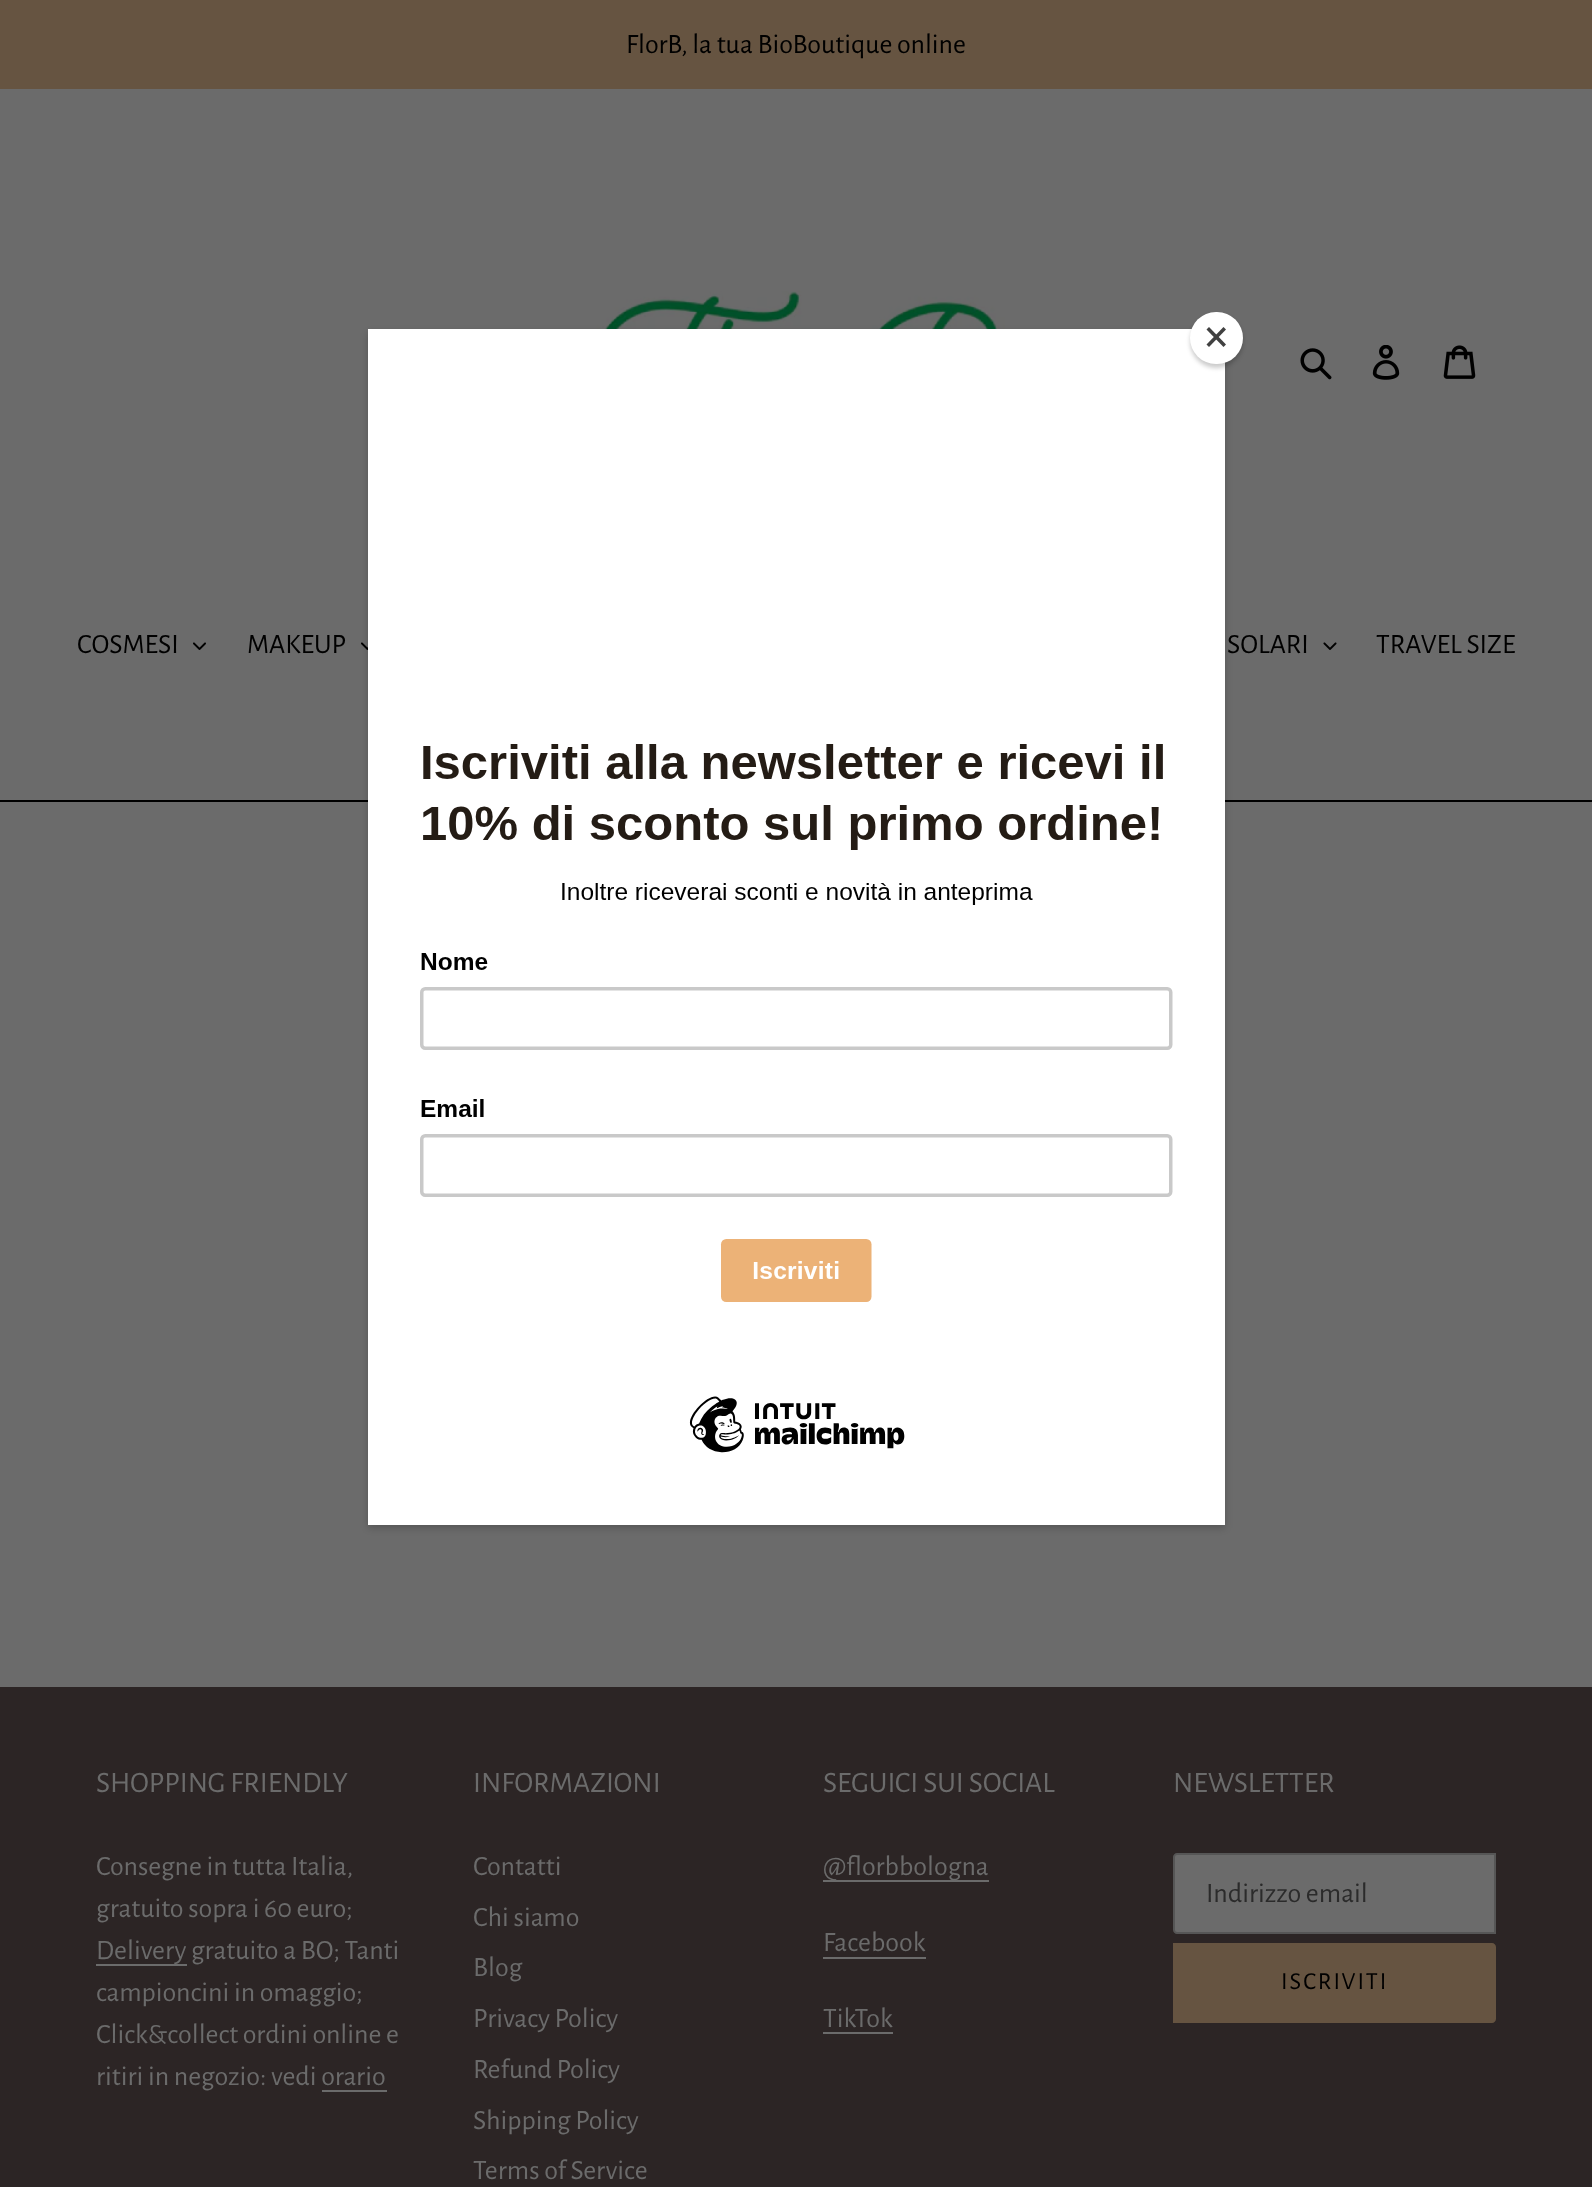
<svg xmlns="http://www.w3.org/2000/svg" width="1592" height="2187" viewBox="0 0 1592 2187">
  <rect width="100%" height="100%" fill="rgb(107,107,107)"/>
  <rect x="0" y="0" width="1592" height="89" fill="rgb(102,84,65)"/>
  <text x="626" y="53" font-family="Alegreya Sans" font-size="28" fill="rgb(0,0,0)">FlorB, la tua BioBoutique online</text>
  <image x="584" y="291" width="421" height="38" href="pic1.png"/>
  <image x="1300" y="348" width="32" height="32" href="pic2.png"/>
  <image x="1372" y="345" width="28" height="35" href="pic3.png"/>
  <image x="1443" y="345" width="33" height="34" href="pic4.png"/>
  <rect x="0" y="800" width="1592" height="2" fill="rgb(0,0,0)"/>
  <text x="77" y="653" font-family="Alegreya Sans" font-size="28" fill="rgb(0,0,0)">COSMESI</text>
  <image x="193" y="642" width="13" height="8" href="pic5.png"/>
  <text x="247" y="653" font-family="Alegreya Sans" font-size="28" fill="rgb(0,0,0)">MAKEUP</text>
  <image x="361" y="642" width="7" height="8" href="pic6.png"/>
  <text x="1227" y="653" font-family="Alegreya Sans" font-size="28" fill="rgb(0,0,0)">SOLARI</text>
  <image x="1323" y="642" width="14" height="8" href="pic7.png"/>
  <text x="1376" y="653" font-family="Alegreya Sans" font-size="28" fill="rgb(0,0,0)">TRAVEL SIZE</text>
  <rect x="368" y="333" width="857" height="1195" fill="rgba(0,0,0,0.2)" filter="blur(3.5px)"/>
  <image x="368" y="329" width="857" height="1196" href="pic8.png"/>
  <rect x="1190" y="315" width="53" height="53" rx="26.5" fill="rgba(0,0,0,0.2)" filter="blur(2px)"/>
  <rect x="1190" y="312" width="53" height="52" rx="26" fill="rgb(255,255,255)"/>
  <path d="M1223.5 327L1226 329.5L1209 347L1206.5 344.5Z" fill="rgb(65,65,65)"/>
  <path d="M1206.5 329.5L1209 327L1226 344.5L1223.5 347Z" fill="rgb(65,65,65)"/>
  <rect x="0" y="1687" width="1592" height="500" fill="rgb(44,37,37)"/>
  <text x="96" y="1792" font-family="Alegreya Sans" font-size="29.75" fill="rgb(107,107,107)">SHOPPING FRIENDLY</text>
  <g font-family="Alegreya Sans" font-size="28" fill="rgb(107,107,107)">
    <text>
      <tspan x="96" y="1875">Consegne in tutta Italia,</tspan>
      <tspan x="96" y="1917">gratuito sopra i 60 euro;</tspan>
    </text>
  </g>
  <rect x="96" y="1964" width="91" height="2" fill="rgb(107,107,107)"/>
  <g font-family="Alegreya Sans" font-size="28" fill="rgb(107,107,107)">
    <text>
      <tspan x="96" y="1959">Delivery gratuito a BO; Tanti</tspan>
      <tspan x="96" y="2001">campioncini in omaggio;</tspan>
      <tspan x="96" y="2043">Click&amp;collect ordini online e</tspan>
      <tspan x="96" y="2085">ritiri in negozio: vedi orario</tspan>
    </text>
  </g>
  <rect x="322" y="2090" width="65" height="2" fill="rgb(107,107,107)"/>
  <text x="473" y="1792" font-family="Alegreya Sans" font-size="29.75" fill="rgb(107,107,107)">INFORMAZIONI</text>
  <g font-family="Alegreya Sans" font-size="28" fill="rgb(107,107,107)">
    <text>
      <tspan x="473" y="1875">Contatti</tspan>
      <tspan x="473" y="1926">Chi siamo</tspan>
      <tspan x="473" y="1976">Blog</tspan>
      <tspan x="473" y="2027">Privacy Policy</tspan>
      <tspan x="473" y="2078">Refund Policy</tspan>
      <tspan x="473" y="2129">Shipping Policy</tspan>
      <tspan x="473" y="2179">Terms of Service</tspan>
    </text>
  </g>
  <text x="823" y="1792" font-family="Alegreya Sans" font-size="29.75" fill="rgb(107,107,107)">SEGUICI SUI SOCIAL</text>
  <rect x="823" y="1880" width="166" height="2" fill="rgb(107,107,107)"/>
  <g font-family="Alegreya Sans" font-size="28" fill="rgb(107,107,107)">
    <text x="823" y="1875">@florbbologna</text>
    <text x="823" y="1951">Facebook</text>
  </g>
  <rect x="823" y="1957" width="103" height="2" fill="rgb(107,107,107)"/>
  <text x="823" y="2027" font-family="Alegreya Sans" font-size="28" fill="rgb(107,107,107)">TikTok</text>
  <rect x="823" y="2032" width="70" height="2" fill="rgb(107,107,107)"/>
  <text x="1173" y="1792" font-family="Alegreya Sans" font-size="29.75" fill="rgb(107,107,107)">NEWSLETTER</text>
  <path d="M1177 1854H1495V1933H1177C1175.5 1933 1174 1931.5 1174 1930V1857C1174 1855.5 1175.5 1854 1177 1854Z" fill="rgb(107,107,107)" stroke="rgb(86,86,86)" stroke-width="2"/>
  <text x="1206" y="1902" font-family="Alegreya Sans" font-size="28" fill="rgb(43,43,43)">Indirizzo email</text>
  <path d="M1173 1943H1492C1494 1943 1496 1945 1496 1947V2019C1496 2021 1494 2023 1492 2023H1173Z" fill="rgb(102,84,65)"/>
  <text x="1281" y="1989" font-family="Alegreya Sans" font-size="24.5" letter-spacing="2" fill="rgb(0,0,0)">ISCRIVITI</text>
</svg>
